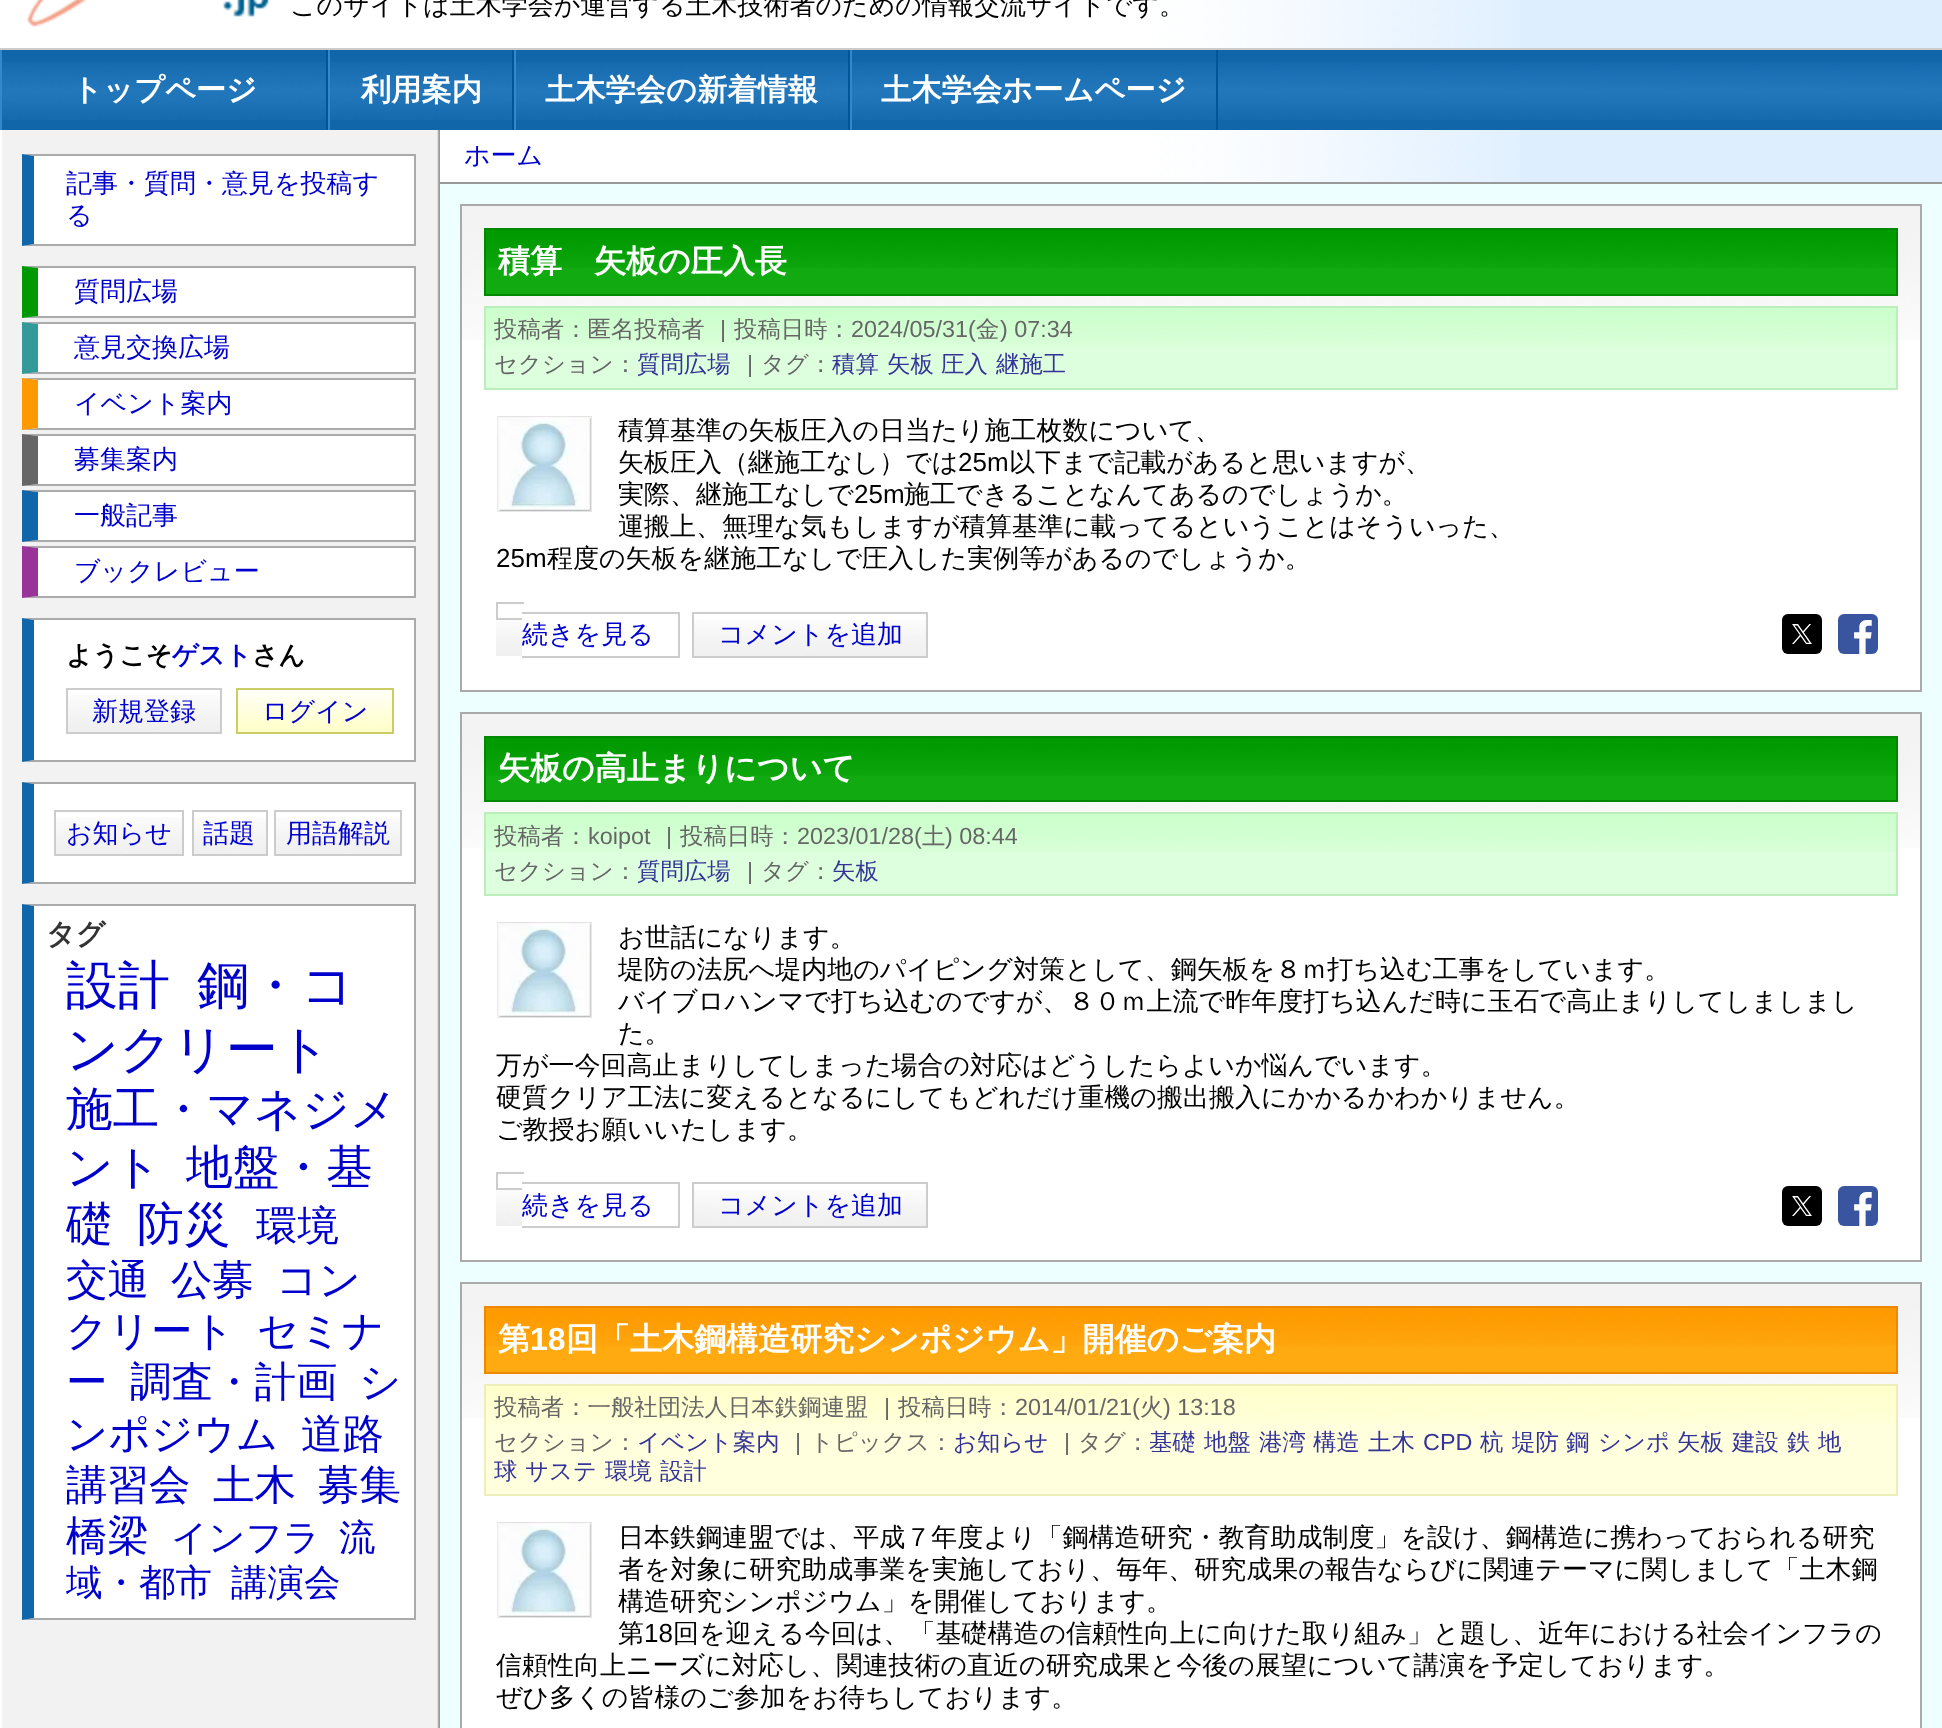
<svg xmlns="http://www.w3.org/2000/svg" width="1942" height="1728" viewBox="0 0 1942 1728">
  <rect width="100%" height="100%" fill="rgb(238,255,255)"/>
  <rect x="1520" y="0" width="422" height="48" fill="rgb(221,238,255)"/>
  <image x="0" y="0" width="1520" height="48" href="pic1.png"/>
  <rect x="0" y="48" width="1942" height="2" fill="rgb(204,204,204)"/>
  <image x="27" y="0" width="242" height="27" href="pic2.png"/>
  <text x="290" y="14" font-family="WenQuanYi Zen Hei" font-size="26" font-weight="500" fill="rgb(0,0,0)">このサイトは土木学会が運営する土木技術者のための情報交流サイトです。</text>
  <rect x="1218" y="50" width="724" height="80" fill="rgb(17,102,170)"/>
  <image x="1218" y="62" width="724" height="58" href="pic3.png"/>
  <rect x="2" y="50" width="324" height="80" fill="rgb(17,102,170)"/>
  <image x="2" y="62" width="324" height="58" href="pic4.png"/>
  <rect x="326" y="50" width="2" height="80" fill="rgb(0,85,153)"/>
  <rect x="0" y="50" width="2" height="80" fill="rgb(51,136,204)"/>
  <text x="72" y="100" font-family="WenQuanYi Zen Hei" font-size="30.25" font-weight="bold" fill="rgb(255,255,255)">トップページ</text>
  <rect x="330" y="50" width="182" height="80" fill="rgb(17,102,170)"/>
  <image x="330" y="62" width="182" height="58" href="pic5.png"/>
  <rect x="512" y="50" width="2" height="80" fill="rgb(0,85,153)"/>
  <rect x="328" y="50" width="2" height="80" fill="rgb(51,136,204)"/>
  <text x="361" y="100" font-family="WenQuanYi Zen Hei" font-size="30.25" font-weight="bold" fill="rgb(255,255,255)">利用案内</text>
  <rect x="516" y="50" width="332" height="80" fill="rgb(17,102,170)"/>
  <image x="516" y="62" width="332" height="58" href="pic6.png"/>
  <rect x="848" y="50" width="2" height="80" fill="rgb(0,85,153)"/>
  <rect x="514" y="50" width="2" height="80" fill="rgb(51,136,204)"/>
  <text x="545" y="100" font-family="WenQuanYi Zen Hei" font-size="30.25" font-weight="bold" fill="rgb(255,255,255)">土木学会の新着情報</text>
  <rect x="852" y="50" width="364" height="80" fill="rgb(17,102,170)"/>
  <image x="852" y="62" width="364" height="58" href="pic7.png"/>
  <rect x="1216" y="50" width="2" height="80" fill="rgb(0,85,153)"/>
  <rect x="850" y="50" width="2" height="80" fill="rgb(51,136,204)"/>
  <text x="881" y="100" font-family="WenQuanYi Zen Hei" font-size="30.25" font-weight="bold" fill="rgb(255,255,255)">土木学会ホームページ</text>
  <image x="0" y="130" width="440" height="1598" href="pic13.png"/>
  <rect x="34" y="156" width="380" height="88" fill="rgb(255,255,255)"/>
  <path d="M22 154H416L414 156H34Z" fill="rgb(170,170,170)"/>
  <rect x="414" y="154" width="2" height="92" fill="rgb(170,170,170)"/>
  <path d="M416 246H22L34 244H414Z" fill="rgb(170,170,170)"/>
  <path d="M22 246V154L34 156V244Z" fill="rgb(17,102,170)"/>
  <g font-family="WenQuanYi Zen Hei" font-size="26" font-weight="500" fill="rgb(0,0,204)">
    <text>
      <tspan x="66" y="192">記事・質問・意見を投稿す</tspan>
      <tspan x="66" y="224">る</tspan>
    </text>
  </g>
  <rect x="38" y="268" width="376" height="48" fill="rgb(255,255,255)"/>
  <path d="M22 266H416L414 268H38Z" fill="rgb(170,170,170)"/>
  <rect x="414" y="266" width="2" height="52" fill="rgb(170,170,170)"/>
  <path d="M416 318H22L38 316H414Z" fill="rgb(170,170,170)"/>
  <path d="M22 318V266L38 268V316Z" fill="rgb(0,153,0)"/>
  <text x="74" y="300" font-family="WenQuanYi Zen Hei" font-size="26" font-weight="500" fill="rgb(0,0,204)">質問広場</text>
  <rect x="38" y="324" width="376" height="48" fill="rgb(255,255,255)"/>
  <path d="M22 322H416L414 324H38Z" fill="rgb(170,170,170)"/>
  <rect x="414" y="322" width="2" height="52" fill="rgb(170,170,170)"/>
  <path d="M416 374H22L38 372H414Z" fill="rgb(170,170,170)"/>
  <path d="M22 374V322L38 324V372Z" fill="rgb(51,153,153)"/>
  <text x="74" y="356" font-family="WenQuanYi Zen Hei" font-size="26" font-weight="500" fill="rgb(0,0,204)">意見交換広場</text>
  <rect x="38" y="380" width="376" height="48" fill="rgb(255,255,255)"/>
  <path d="M22 378H416L414 380H38Z" fill="rgb(170,170,170)"/>
  <rect x="414" y="378" width="2" height="52" fill="rgb(170,170,170)"/>
  <path d="M416 430H22L38 428H414Z" fill="rgb(170,170,170)"/>
  <path d="M22 430V378L38 380V428Z" fill="rgb(255,153,0)"/>
  <text x="74" y="412" font-family="WenQuanYi Zen Hei" font-size="26" font-weight="500" fill="rgb(0,0,204)">イベント案内</text>
  <rect x="38" y="436" width="376" height="48" fill="rgb(255,255,255)"/>
  <path d="M22 434H416L414 436H38Z" fill="rgb(170,170,170)"/>
  <rect x="414" y="434" width="2" height="52" fill="rgb(170,170,170)"/>
  <path d="M416 486H22L38 484H414Z" fill="rgb(170,170,170)"/>
  <path d="M22 486V434L38 436V484Z" fill="rgb(102,102,102)"/>
  <text x="74" y="468" font-family="WenQuanYi Zen Hei" font-size="26" font-weight="500" fill="rgb(0,0,204)">募集案内</text>
  <rect x="38" y="492" width="376" height="48" fill="rgb(255,255,255)"/>
  <path d="M22 490H416L414 492H38Z" fill="rgb(170,170,170)"/>
  <rect x="414" y="490" width="2" height="52" fill="rgb(170,170,170)"/>
  <path d="M416 542H22L38 540H414Z" fill="rgb(170,170,170)"/>
  <path d="M22 542V490L38 492V540Z" fill="rgb(17,102,170)"/>
  <text x="74" y="524" font-family="WenQuanYi Zen Hei" font-size="26" font-weight="500" fill="rgb(0,0,204)">一般記事</text>
  <rect x="38" y="548" width="376" height="48" fill="rgb(255,255,255)"/>
  <path d="M22 546H416L414 548H38Z" fill="rgb(170,170,170)"/>
  <rect x="414" y="546" width="2" height="52" fill="rgb(170,170,170)"/>
  <path d="M416 598H22L38 596H414Z" fill="rgb(170,170,170)"/>
  <path d="M22 598V546L38 548V596Z" fill="rgb(153,51,153)"/>
  <text x="74" y="580" font-family="WenQuanYi Zen Hei" font-size="26" font-weight="500" fill="rgb(0,0,204)">ブックレビュー</text>
  <rect x="34" y="620" width="380" height="140" fill="rgb(255,255,255)"/>
  <path d="M22 618H416L414 620H34Z" fill="rgb(170,170,170)"/>
  <rect x="414" y="618" width="2" height="144" fill="rgb(170,170,170)"/>
  <path d="M416 762H22L34 760H414Z" fill="rgb(170,170,170)"/>
  <path d="M22 762V618L34 620V760Z" fill="rgb(17,102,170)"/>
  <text x="66" y="664" font-family="WenQuanYi Zen Hei" font-size="26" font-weight="bold" fill="rgb(0,0,0)">ようこそ</text>
  <text x="172" y="664" font-family="WenQuanYi Zen Hei" font-size="26" font-weight="bold" fill="rgb(0,0,204)">ゲスト</text>
  <text x="252" y="664" font-family="WenQuanYi Zen Hei" font-size="26" font-weight="bold" fill="rgb(0,0,0)">さん</text>
  <image x="68" y="695" width="152" height="37" href="pic8.png"/>
  <image x="238" y="690" width="154" height="42" href="pic9.png"/>
  <rect x="67" y="689" width="154" height="44" fill="none" stroke="rgb(204,204,204)" stroke-width="2"/>
  <text x="92" y="720" font-family="WenQuanYi Zen Hei" font-size="26" font-weight="500" fill="rgb(0,0,204)">新規登録</text>
  <rect x="237" y="689" width="156" height="44" fill="none" stroke="rgb(204,204,102)" stroke-width="2"/>
  <text x="262" y="720" font-family="WenQuanYi Zen Hei" font-size="26" font-weight="500" fill="rgb(0,0,204)">ログイン</text>
  <rect x="34" y="784" width="380" height="98" fill="rgb(255,255,255)"/>
  <path d="M22 782H416L414 784H34Z" fill="rgb(170,170,170)"/>
  <rect x="414" y="782" width="2" height="102" fill="rgb(170,170,170)"/>
  <path d="M416 884H22L34 882H414Z" fill="rgb(170,170,170)"/>
  <path d="M22 884V782L34 784V882Z" fill="rgb(17,102,170)"/>
  <image x="56" y="817" width="126" height="37" href="pic10.png"/>
  <image x="194" y="817" width="72" height="37" href="pic11.png"/>
  <image x="276" y="817" width="124" height="37" href="pic12.png"/>
  <rect x="55" y="811" width="128" height="44" fill="none" stroke="rgb(204,204,204)" stroke-width="2"/>
  <text x="66" y="842" font-family="WenQuanYi Zen Hei" font-size="26" font-weight="500" fill="rgb(0,0,204)">お知らせ</text>
  <rect x="193" y="811" width="74" height="44" fill="none" stroke="rgb(204,204,204)" stroke-width="2"/>
  <text x="203" y="842" font-family="WenQuanYi Zen Hei" font-size="26" font-weight="500" fill="rgb(0,0,204)">話題</text>
  <rect x="275" y="811" width="126" height="44" fill="none" stroke="rgb(204,204,204)" stroke-width="2"/>
  <text x="286" y="842" font-family="WenQuanYi Zen Hei" font-size="26" font-weight="500" fill="rgb(0,0,204)">用語解説</text>
  <rect x="34" y="906" width="380" height="712" fill="rgb(255,255,255)"/>
  <path d="M22 904H416L414 906H34Z" fill="rgb(170,170,170)"/>
  <rect x="414" y="904" width="2" height="716" fill="rgb(170,170,170)"/>
  <path d="M416 1620H22L34 1618H414Z" fill="rgb(170,170,170)"/>
  <path d="M22 1620V904L34 906V1618Z" fill="rgb(17,102,170)"/>
  <text x="46" y="944" font-family="WenQuanYi Zen Hei" font-size="29" font-weight="bold" fill="rgb(51,51,51)">タグ</text>
  <g font-family="WenQuanYi Zen Hei" font-size="52" font-weight="500" fill="rgb(0,0,204)">
    <text x="66" y="1003">設計</text>
    <text x="197" y="1003">鋼・コ</text>
    <text x="66" y="1067">ンクリート</text>
  </g>
  <g font-family="WenQuanYi Zen Hei" font-size="46.75" font-weight="500" fill="rgb(0,0,204)">
    <text>
      <tspan x="66" y="1125">施工・マネジメ</tspan>
      <tspan x="66" y="1183">ント</tspan>
    </text>
    <text x="186" y="1183">地盤・基</text>
    <text x="66" y="1240">礎</text>
    <text x="137" y="1240">防災</text>
  </g>
  <g font-family="WenQuanYi Zen Hei" font-size="41.5" font-weight="500" fill="rgb(0,0,204)">
    <text x="256" y="1240">環境</text>
    <text x="66" y="1294">交通</text>
    <text x="171" y="1294">公募</text>
    <text x="276" y="1294">コン</text>
    <text x="66" y="1345">クリート</text>
    <text x="257" y="1345">セミナ</text>
    <text x="66" y="1396">ー</text>
    <text x="130" y="1396">調査・計画</text>
    <text x="359" y="1396">シ</text>
    <text x="66" y="1448">ンポジウム</text>
    <text x="301" y="1448">道路</text>
    <text x="66" y="1499">講習会</text>
    <text x="213" y="1499">土木</text>
    <text x="318" y="1499">募集</text>
    <text x="66" y="1550">橋梁</text>
  </g>
  <g font-family="WenQuanYi Zen Hei" font-size="36.5" font-weight="500" fill="rgb(0,0,204)">
    <text x="171" y="1550">インフラ</text>
    <text x="339" y="1550">流</text>
    <text x="66" y="1595">域・都市</text>
    <text x="231" y="1595">講演会</text>
  </g>
  <rect x="1520" y="130" width="422" height="52" fill="rgb(221,238,255)"/>
  <image x="440" y="130" width="1080" height="52" href="pic14.png"/>
  <rect x="440" y="182" width="1502" height="2" fill="rgb(153,153,153)"/>
  <text x="464" y="164" font-family="WenQuanYi Zen Hei" font-size="26" font-weight="500" fill="rgb(0,0,204)">ホーム</text>
  <rect x="462" y="340" width="1458" height="350" fill="rgb(255,255,255)"/>
  <image x="462" y="206" width="1458" height="134" href="pic15.png"/>
  <rect x="461" y="205" width="1460" height="486" fill="none" stroke="rgb(170,170,170)" stroke-width="2"/>
  <rect x="486" y="268" width="1410" height="26" fill="rgb(17,170,17)"/>
  <image x="486" y="230" width="1410" height="38" href="pic16.png"/>
  <rect x="485" y="229" width="1412" height="66" fill="none" stroke="rgb(0,136,0)" stroke-width="2"/>
  <text x="498" y="272" font-family="WenQuanYi Zen Hei" font-size="32" font-weight="bold" fill="rgb(255,255,255)">積算　矢板の圧入長</text>
  <rect x="486" y="346" width="1410" height="42" fill="rgb(221,255,221)"/>
  <image x="486" y="308" width="1410" height="38" href="pic17.png"/>
  <rect x="485" y="307" width="1412" height="82" fill="none" stroke="rgb(187,238,187)" stroke-width="2"/>
  <text x="494" y="337" font-family="WenQuanYi Zen Hei" font-size="23.4" font-weight="500" fill="rgb(102,102,102)">投稿者：匿名投稿者</text>
  <text x="720" y="337" font-family="Liberation Sans" font-size="23.4" fill="rgb(102,102,102)">|</text>
  <text x="734" y="337" font-family="WenQuanYi Zen Hei" font-size="23.4" font-weight="500" fill="rgb(102,102,102)">投稿日時：</text>
  <text x="851" y="337" font-family="Liberation Sans" font-size="23.4" fill="rgb(102,102,102)">2024/05/31(</text>
  <text x="976" y="337" font-family="WenQuanYi Zen Hei" font-size="23.4" font-weight="500" fill="rgb(102,102,102)">金</text>
  <text x="1000" y="337" font-family="Liberation Sans" font-size="23.4" fill="rgb(102,102,102)">) 07:34</text>
  <text x="494" y="372" font-family="WenQuanYi Zen Hei" font-size="23.4" font-weight="500" fill="rgb(102,102,102)">セクション：</text>
  <text x="637" y="372" font-family="WenQuanYi Zen Hei" font-size="23.4" font-weight="500" fill="rgb(51,51,153)">質問広場</text>
  <text x="747" y="372" font-family="Liberation Sans" font-size="23.4" fill="rgb(102,102,102)">|</text>
  <text x="761" y="372" font-family="WenQuanYi Zen Hei" font-size="23.4" font-weight="500" fill="rgb(102,102,102)">タグ：</text>
  <g font-family="WenQuanYi Zen Hei" font-size="23.4" font-weight="500" fill="rgb(51,51,153)">
    <text x="832" y="372">積算</text>
    <text x="887" y="372">矢板</text>
    <text x="941" y="372">圧入</text>
    <text x="996" y="372">継施工</text>
  </g>
  <image x="496" y="416" width="96" height="96" href="pic18.png"/>
  <g font-family="WenQuanYi Zen Hei" font-size="26" font-weight="500" fill="rgb(0,0,0)">
    <text>
      <tspan x="618" y="439">積算基準の矢板圧入の日当たり施工枚数について、</tspan>
      <tspan x="618" y="471">矢板圧入（継施工なし）では</tspan>
    </text>
  </g>
  <text x="958" y="471" font-family="Liberation Sans" font-size="26" fill="rgb(0,0,0)">25m</text>
  <g font-family="WenQuanYi Zen Hei" font-size="26" font-weight="500" fill="rgb(0,0,0)">
    <text x="1009" y="471">以下まで記載があると思いますが、</text>
    <text x="618" y="503">実際、継施工なしで</text>
  </g>
  <text x="854" y="503" font-family="Liberation Sans" font-size="26" fill="rgb(0,0,0)">25m</text>
  <g font-family="WenQuanYi Zen Hei" font-size="26" font-weight="500" fill="rgb(0,0,0)">
    <text x="904" y="503">施工できることなんてあるのでしょうか。</text>
    <text x="618" y="535">運搬上、無理な気もしますが積算基準に載ってるということはそういった、</text>
  </g>
  <text x="496" y="567" font-family="Liberation Sans" font-size="26" fill="rgb(0,0,0)">25m</text>
  <text x="547" y="567" font-family="WenQuanYi Zen Hei" font-size="26" font-weight="500" fill="rgb(0,0,0)">程度の矢板を継施工なしで圧入した実例等があるのでしょうか。</text>
  <image x="496" y="620" width="26" height="36" href="pic19.png"/>
  <image x="694" y="620" width="232" height="36" href="pic20.png"/>
  <text x="522" y="643" font-family="WenQuanYi Zen Hei" font-size="26" font-weight="500" fill="rgb(0,0,204)">続きを見る</text>
  <rect x="496" y="602" width="28" height="2" fill="rgb(204,204,204)"/>
  <rect x="496" y="618" width="28" height="2" fill="rgb(204,204,204)"/>
  <rect x="496" y="602" width="2" height="18" fill="rgb(204,204,204)"/>
  <rect x="522" y="618" width="2" height="2" fill="rgb(255,255,255)"/>
  <rect x="522" y="612" width="158" height="2" fill="rgb(204,204,204)"/>
  <rect x="678" y="612" width="2" height="46" fill="rgb(204,204,204)"/>
  <rect x="522" y="656" width="158" height="2" fill="rgb(204,204,204)"/>
  <rect x="693" y="613" width="234" height="44" fill="none" stroke="rgb(204,204,204)" stroke-width="2"/>
  <text x="718" y="643" font-family="WenQuanYi Zen Hei" font-size="26" font-weight="500" fill="rgb(0,0,204)">コメントを追加</text>
  <image x="1782" y="614" width="40" height="40" href="pic21.png"/>
  <image x="1838" y="614" width="40" height="40" href="pic22.png"/>
  <rect x="462" y="848" width="1458" height="412" fill="rgb(255,255,255)"/>
  <image x="462" y="714" width="1458" height="134" href="pic15.png"/>
  <rect x="461" y="713" width="1460" height="548" fill="none" stroke="rgb(170,170,170)" stroke-width="2"/>
  <rect x="486" y="776" width="1410" height="24" fill="rgb(17,170,17)"/>
  <image x="486" y="738" width="1410" height="38" href="pic16.png"/>
  <rect x="485" y="737" width="1412" height="64" fill="none" stroke="rgb(0,136,0)" stroke-width="2"/>
  <text x="498" y="779" font-family="WenQuanYi Zen Hei" font-size="32" font-weight="bold" fill="rgb(255,255,255)">矢板の高止まりについて</text>
  <rect x="486" y="852" width="1410" height="42" fill="rgb(221,255,221)"/>
  <image x="486" y="814" width="1410" height="38" href="pic17.png"/>
  <rect x="485" y="813" width="1412" height="82" fill="none" stroke="rgb(187,238,187)" stroke-width="2"/>
  <text x="494" y="844" font-family="WenQuanYi Zen Hei" font-size="23.4" font-weight="500" fill="rgb(102,102,102)">投稿者：</text>
  <g font-family="Liberation Sans" font-size="23.4" fill="rgb(102,102,102)">
    <text x="588" y="844">koipot</text>
    <text x="666" y="844">|</text>
  </g>
  <text x="680" y="844" font-family="WenQuanYi Zen Hei" font-size="23.4" font-weight="500" fill="rgb(102,102,102)">投稿日時：</text>
  <text x="797" y="844" font-family="Liberation Sans" font-size="23.4" fill="rgb(102,102,102)">2023/01/28(</text>
  <text x="922" y="844" font-family="WenQuanYi Zen Hei" font-size="23.4" font-weight="500" fill="rgb(102,102,102)">土</text>
  <text x="945" y="844" font-family="Liberation Sans" font-size="23.4" fill="rgb(102,102,102)">) 08:44</text>
  <text x="494" y="879" font-family="WenQuanYi Zen Hei" font-size="23.4" font-weight="500" fill="rgb(102,102,102)">セクション：</text>
  <text x="637" y="879" font-family="WenQuanYi Zen Hei" font-size="23.4" font-weight="500" fill="rgb(51,51,153)">質問広場</text>
  <text x="747" y="879" font-family="Liberation Sans" font-size="23.4" fill="rgb(102,102,102)">|</text>
  <text x="761" y="879" font-family="WenQuanYi Zen Hei" font-size="23.4" font-weight="500" fill="rgb(102,102,102)">タグ：</text>
  <text x="832" y="879" font-family="WenQuanYi Zen Hei" font-size="23.4" font-weight="500" fill="rgb(51,51,153)">矢板</text>
  <image x="496" y="922" width="96" height="96" href="pic18.png"/>
  <g font-family="WenQuanYi Zen Hei" font-size="26" font-weight="500" fill="rgb(0,0,0)">
    <text>
      <tspan x="618" y="946">お世話になります。</tspan>
      <tspan x="618" y="978">堤防の法尻へ堤内地のパイピング対策として、鋼矢板を８ｍ打ち込む工事をしています。</tspan>
      <tspan x="618" y="1010">バイブロハンマで打ち込むのですが、８０ｍ上流で昨年度打ち込んだ時に玉石で高止まりしてしましまし</tspan>
      <tspan x="618" y="1042">た。</tspan>
    </text>
    <text>
      <tspan x="496" y="1074">万が一今回高止まりしてしまった場合の対応はどうしたらよいか悩んでいます。</tspan>
      <tspan x="496" y="1106">硬質クリア工法に変えるとなるにしてもどれだけ重機の搬出搬入にかかるかわかりません。</tspan>
      <tspan x="496" y="1138">ご教授お願いいたします。</tspan>
    </text>
  </g>
  <image x="496" y="1190" width="26" height="36" href="pic19.png"/>
  <image x="694" y="1190" width="232" height="36" href="pic20.png"/>
  <text x="522" y="1214" font-family="WenQuanYi Zen Hei" font-size="26" font-weight="500" fill="rgb(0,0,204)">続きを見る</text>
  <rect x="496" y="1172" width="28" height="2" fill="rgb(204,204,204)"/>
  <rect x="496" y="1188" width="28" height="2" fill="rgb(204,204,204)"/>
  <rect x="496" y="1172" width="2" height="18" fill="rgb(204,204,204)"/>
  <rect x="522" y="1188" width="2" height="2" fill="rgb(255,255,255)"/>
  <rect x="522" y="1182" width="158" height="2" fill="rgb(204,204,204)"/>
  <rect x="678" y="1182" width="2" height="46" fill="rgb(204,204,204)"/>
  <rect x="522" y="1226" width="158" height="2" fill="rgb(204,204,204)"/>
  <rect x="693" y="1183" width="234" height="44" fill="none" stroke="rgb(204,204,204)" stroke-width="2"/>
  <text x="718" y="1214" font-family="WenQuanYi Zen Hei" font-size="26" font-weight="500" fill="rgb(0,0,204)">コメントを追加</text>
  <image x="1782" y="1186" width="40" height="40" href="pic23.png"/>
  <image x="1838" y="1186" width="40" height="40" href="pic24.png"/>
  <rect x="462" y="1418" width="1458" height="310" fill="rgb(255,255,255)"/>
  <image x="462" y="1284" width="1458" height="134" href="pic15.png"/>
  <rect x="461" y="1283" width="1460" height="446" fill="none" stroke="rgb(170,170,170)" stroke-width="2"/>
  <rect x="486" y="1346" width="1410" height="26" fill="rgb(255,170,17)"/>
  <image x="486" y="1308" width="1410" height="38" href="pic25.png"/>
  <rect x="485" y="1307" width="1412" height="66" fill="none" stroke="rgb(238,136,0)" stroke-width="2"/>
  <text x="498" y="1350" font-family="WenQuanYi Zen Hei" font-size="32" font-weight="bold" fill="rgb(255,255,255)">第</text>
  <text x="530" y="1350" font-family="Liberation Sans" font-size="32" font-weight="bold" fill="rgb(255,255,255)">18</text>
  <text x="566" y="1350" font-family="WenQuanYi Zen Hei" font-size="32" font-weight="bold" fill="rgb(255,255,255)">回「土木鋼構造研究シンポジウム」開催のご案内</text>
  <rect x="486" y="1424" width="1410" height="70" fill="rgb(255,255,221)"/>
  <image x="486" y="1386" width="1410" height="38" href="pic26.png"/>
  <rect x="485" y="1385" width="1412" height="110" fill="none" stroke="rgb(238,238,187)" stroke-width="2"/>
  <text x="494" y="1415" font-family="WenQuanYi Zen Hei" font-size="23.4" font-weight="500" fill="rgb(102,102,102)">投稿者：一般社団法人日本鉄鋼連盟</text>
  <text x="884" y="1415" font-family="Liberation Sans" font-size="23.4" fill="rgb(102,102,102)">|</text>
  <text x="898" y="1415" font-family="WenQuanYi Zen Hei" font-size="23.4" font-weight="500" fill="rgb(102,102,102)">投稿日時：</text>
  <text x="1015" y="1415" font-family="Liberation Sans" font-size="23.4" fill="rgb(102,102,102)">2014/01/21(</text>
  <text x="1140" y="1415" font-family="WenQuanYi Zen Hei" font-size="23.4" font-weight="500" fill="rgb(102,102,102)">火</text>
  <text x="1163" y="1415" font-family="Liberation Sans" font-size="23.4" fill="rgb(102,102,102)">) 13:18</text>
  <text x="494" y="1450" font-family="WenQuanYi Zen Hei" font-size="23.4" font-weight="500" fill="rgb(102,102,102)">セクション：</text>
  <text x="637" y="1450" font-family="WenQuanYi Zen Hei" font-size="23.4" font-weight="500" fill="rgb(51,51,153)">イベント案内</text>
  <text x="795" y="1450" font-family="Liberation Sans" font-size="23.4" fill="rgb(102,102,102)">|</text>
  <text x="810" y="1450" font-family="WenQuanYi Zen Hei" font-size="23.4" font-weight="500" fill="rgb(102,102,102)">トピックス：</text>
  <text x="953" y="1450" font-family="WenQuanYi Zen Hei" font-size="23.4" font-weight="500" fill="rgb(51,51,153)">お知らせ</text>
  <text x="1064" y="1450" font-family="Liberation Sans" font-size="23.4" fill="rgb(102,102,102)">|</text>
  <text x="1078" y="1450" font-family="WenQuanYi Zen Hei" font-size="23.4" font-weight="500" fill="rgb(102,102,102)">タグ：</text>
  <g font-family="WenQuanYi Zen Hei" font-size="23.4" font-weight="500" fill="rgb(51,51,153)">
    <text x="1149" y="1450">基礎</text>
    <text x="1204" y="1450">地盤</text>
    <text x="1259" y="1450">港湾</text>
    <text x="1313" y="1450">構造</text>
    <text x="1368" y="1450">土木</text>
  </g>
  <text x="1423" y="1450" font-family="Liberation Sans" font-size="23.4" fill="rgb(51,51,153)">CPD</text>
  <g font-family="WenQuanYi Zen Hei" font-size="23.4" font-weight="500" fill="rgb(51,51,153)">
    <text x="1480" y="1450">杭</text>
    <text x="1512" y="1450">堤防</text>
    <text x="1566" y="1450">鋼</text>
    <text x="1598" y="1450">シンポ</text>
    <text x="1677" y="1450">矢板</text>
    <text x="1732" y="1450">建設</text>
    <text x="1787" y="1450">鉄</text>
    <text x="1818" y="1450">地</text>
    <text x="494" y="1479">球</text>
    <text x="525" y="1479">サステ</text>
    <text x="605" y="1479">環境</text>
    <text x="660" y="1479">設計</text>
  </g>
  <image x="496" y="1522" width="96" height="96" href="pic18.png"/>
  <g font-family="WenQuanYi Zen Hei" font-size="26" font-weight="500" fill="rgb(0,0,0)">
    <text>
      <tspan x="618" y="1546">日本鉄鋼連盟では、平成７年度より「鋼構造研究・教育助成制度」を設け、鋼構造に携わっておられる研究</tspan>
      <tspan x="618" y="1578">者を対象に研究助成事業を実施しており、毎年、研究成果の報告ならびに関連テーマに関しまして「土木鋼</tspan>
      <tspan x="618" y="1610">構造研究シンポジウム」を開催しております。</tspan>
      <tspan x="618" y="1642">第</tspan>
    </text>
  </g>
  <text x="644" y="1642" font-family="Liberation Sans" font-size="26" fill="rgb(0,0,0)">18</text>
  <g font-family="WenQuanYi Zen Hei" font-size="26" font-weight="500" fill="rgb(0,0,0)">
    <text x="673" y="1642">回を迎える今回は、「基礎構造の信頼性向上に向けた取り組み」と題し、近年における社会インフラの</text>
    <text>
      <tspan x="496" y="1674">信頼性向上ニーズに対応し、関連技術の直近の研究成果と今後の展望について講演を予定しております。</tspan>
      <tspan x="496" y="1706">ぜひ多くの皆様のご参加をお待ちしております。</tspan>
    </text>
  </g>
</svg>
